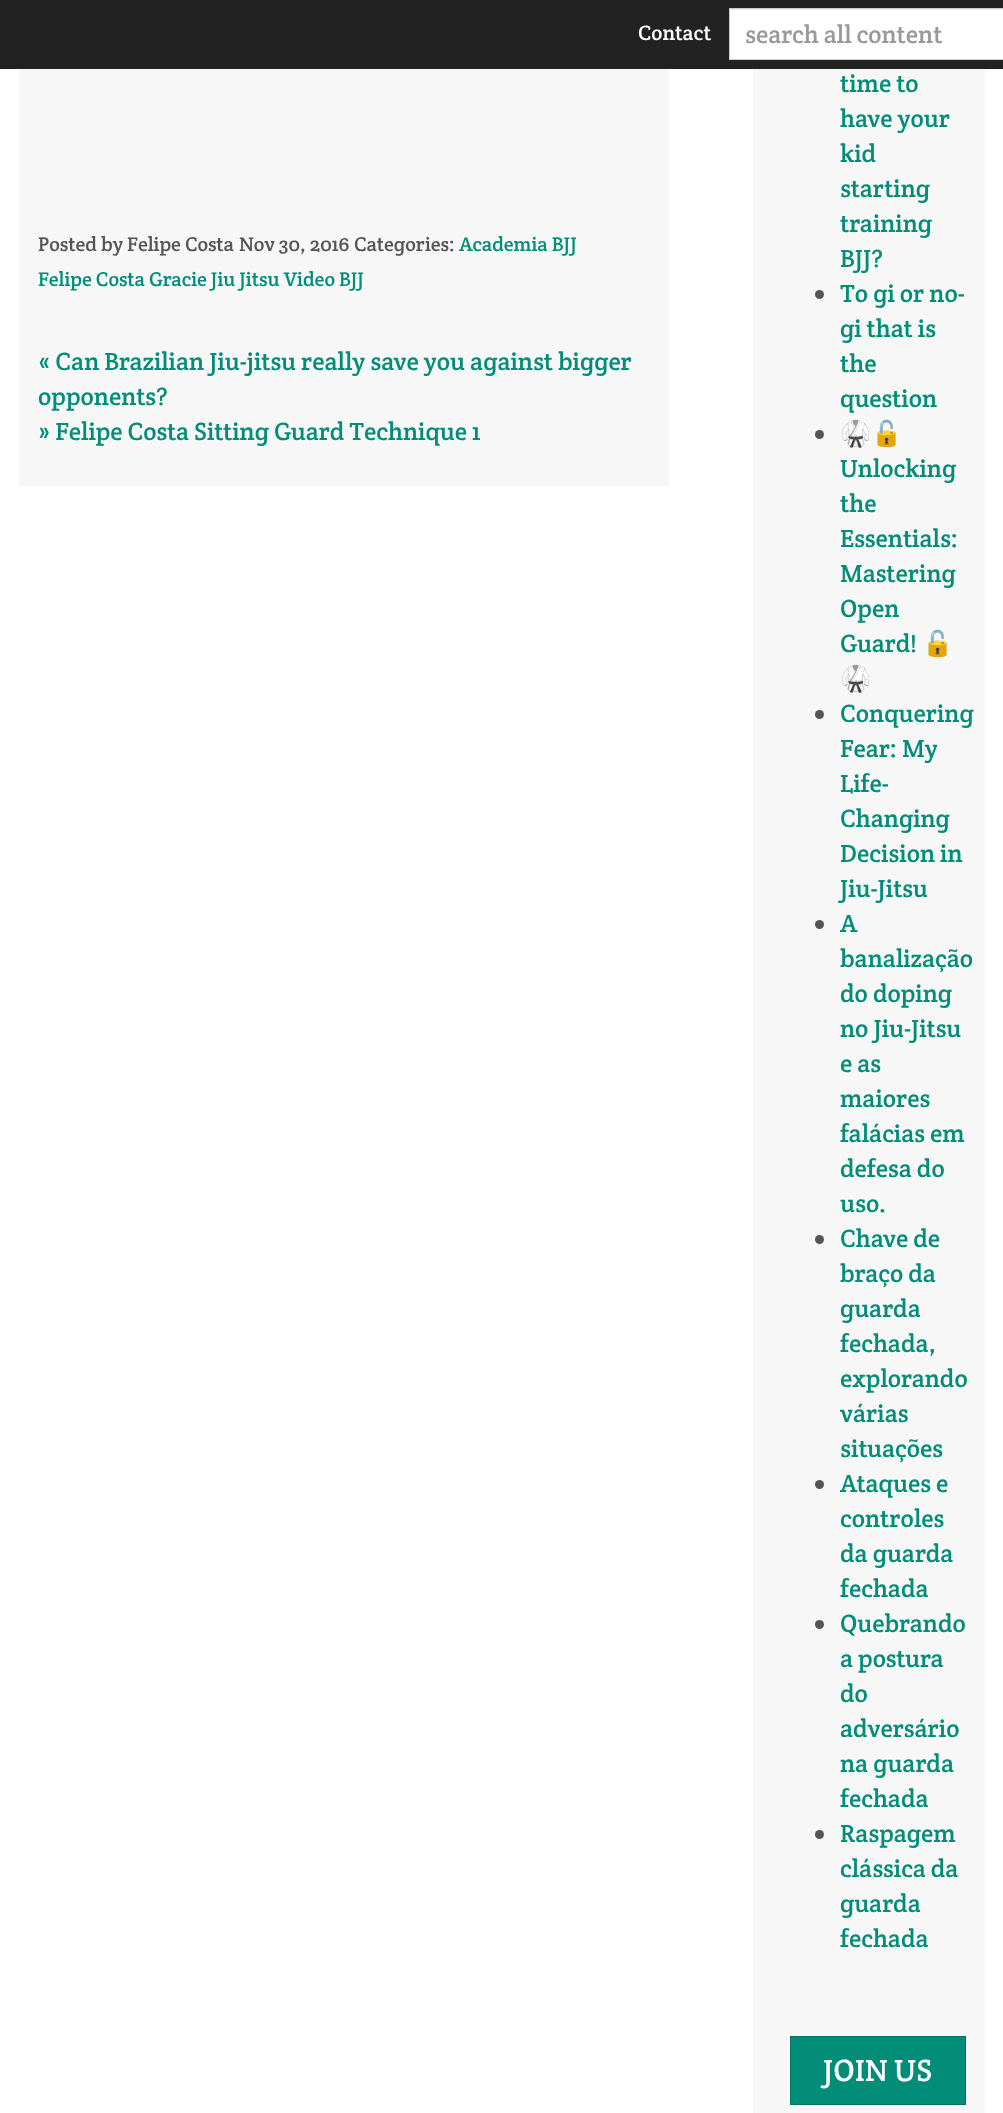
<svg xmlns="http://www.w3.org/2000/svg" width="1003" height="2113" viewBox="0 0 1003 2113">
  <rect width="100%" height="100%" fill="rgb(255,255,255)"/>
  <rect x="0" y="0" width="1003" height="69" fill="rgb(34,34,34)"/>
  <text x="638" y="40" font-family="Crete Round" font-size="21" fill="rgb(255,255,255)">Contact</text>
  <rect x="730" y="10" width="273" height="49" fill="rgb(255,255,255)"/>
  <rect x="730" y="9" width="273" height="1" fill="rgb(236,236,236)"/>
  <rect x="729.5" y="8.5" width="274" height="51" fill="none" stroke="rgb(204,204,204)"/>
  <text x="745" y="43" font-family="Crete Round" font-size="25" fill="rgb(153,153,153)">search all content</text>
  <rect x="19" y="69" width="650" height="417" fill="rgb(247,247,247)"/>
  <g font-family="Crete Round" font-size="20" fill="rgb(85,85,85)">
    <text x="38" y="251">Posted by Felipe Costa</text>
    <text x="239" y="251">Nov 30, 2016</text>
    <text x="354" y="251">Categories:</text>
  </g>
  <g font-family="Crete Round" font-size="20" fill="rgb(2,141,121)">
    <text x="459" y="251">Academia BJJ</text>
    <text x="38" y="286">Felipe Costa Gracie Jiu Jitsu Video BJJ</text>
  </g>
  <g font-family="Crete Round" font-size="25" fill="rgb(2,141,121)">
    <text>
      <tspan x="38" y="370">« Can Brazilian Jiu-jitsu really save you against bigger</tspan>
      <tspan x="38" y="405">opponents?</tspan>
      <tspan x="38" y="440">» Felipe Costa Sitting Guard Technique 1</tspan>
    </text>
  </g>
  <rect x="753" y="69" width="232" height="2044" fill="rgb(247,247,247)"/>
  <g font-family="Crete Round" font-size="25" fill="rgb(2,141,121)">
    <text>
      <tspan x="840" y="92">time to</tspan>
      <tspan x="840" y="127">have your</tspan>
      <tspan x="840" y="162">kid</tspan>
      <tspan x="840" y="197">starting</tspan>
      <tspan x="840" y="232">training</tspan>
      <tspan x="840" y="267">BJJ?</tspan>
    </text>
  </g>
  <circle cx="819.5" cy="294.5" r="4.5" fill="rgb(85,85,85)"/>
  <g font-family="Crete Round" font-size="25" fill="rgb(2,141,121)">
    <text>
      <tspan x="840" y="302">To gi or no-</tspan>
      <tspan x="840" y="337">gi that is</tspan>
      <tspan x="840" y="372">the</tspan>
      <tspan x="840" y="407">question</tspan>
    </text>
  </g>
  <circle cx="819.5" cy="434.5" r="4.5" fill="rgb(85,85,85)"/>
  <text x="840" y="442" font-family="Noto Color Emoji" font-size="25" fill="rgb(2,141,121)">🥋🔓</text>
  <g font-family="Crete Round" font-size="25" fill="rgb(2,141,121)">
    <text>
      <tspan x="840" y="477">Unlocking</tspan>
      <tspan x="840" y="512">the</tspan>
      <tspan x="840" y="547">Essentials:</tspan>
      <tspan x="840" y="582">Mastering</tspan>
      <tspan x="840" y="617">Open</tspan>
      <tspan x="840" y="652">Guard!</tspan>
    </text>
  </g>
  <g font-family="Noto Color Emoji" font-size="25" fill="rgb(2,141,121)">
    <text x="922" y="652">🔓</text>
    <text x="840" y="687">🥋</text>
  </g>
  <circle cx="819.5" cy="714.5" r="4.5" fill="rgb(85,85,85)"/>
  <g font-family="Crete Round" font-size="25" fill="rgb(2,141,121)">
    <text>
      <tspan x="840" y="722">Conquering</tspan>
      <tspan x="840" y="757">Fear: My</tspan>
      <tspan x="840" y="792">Life-</tspan>
      <tspan x="840" y="827">Changing</tspan>
      <tspan x="840" y="862">Decision in</tspan>
      <tspan x="840" y="897">Jiu-Jitsu</tspan>
    </text>
  </g>
  <circle cx="819.5" cy="924.5" r="4.5" fill="rgb(85,85,85)"/>
  <g font-family="Crete Round" font-size="25" fill="rgb(2,141,121)">
    <text>
      <tspan x="840" y="932">A</tspan>
      <tspan x="840" y="967">banalização</tspan>
      <tspan x="840" y="1002">do doping</tspan>
      <tspan x="840" y="1037">no Jiu-Jitsu</tspan>
      <tspan x="840" y="1072">e as</tspan>
      <tspan x="840" y="1107">maiores</tspan>
      <tspan x="840" y="1142">falácias em</tspan>
      <tspan x="840" y="1177">defesa do</tspan>
      <tspan x="840" y="1212">uso.</tspan>
    </text>
  </g>
  <circle cx="819.5" cy="1239.5" r="4.5" fill="rgb(85,85,85)"/>
  <g font-family="Crete Round" font-size="25" fill="rgb(2,141,121)">
    <text>
      <tspan x="840" y="1247">Chave de</tspan>
      <tspan x="840" y="1282">braço da</tspan>
      <tspan x="840" y="1317">guarda</tspan>
      <tspan x="840" y="1352">fechada,</tspan>
      <tspan x="840" y="1387">explorando</tspan>
      <tspan x="840" y="1422">várias</tspan>
      <tspan x="840" y="1457">situações</tspan>
    </text>
  </g>
  <circle cx="819.5" cy="1484.5" r="4.5" fill="rgb(85,85,85)"/>
  <g font-family="Crete Round" font-size="25" fill="rgb(2,141,121)">
    <text>
      <tspan x="840" y="1492">Ataques e</tspan>
      <tspan x="840" y="1527">controles</tspan>
      <tspan x="840" y="1562">da guarda</tspan>
      <tspan x="840" y="1597">fechada</tspan>
    </text>
  </g>
  <circle cx="819.5" cy="1624.5" r="4.5" fill="rgb(85,85,85)"/>
  <g font-family="Crete Round" font-size="25" fill="rgb(2,141,121)">
    <text>
      <tspan x="840" y="1632">Quebrando</tspan>
      <tspan x="840" y="1667">a postura</tspan>
      <tspan x="840" y="1702">do</tspan>
      <tspan x="840" y="1737">adversário</tspan>
      <tspan x="840" y="1772">na guarda</tspan>
      <tspan x="840" y="1807">fechada</tspan>
    </text>
  </g>
  <circle cx="819.5" cy="1834.5" r="4.5" fill="rgb(85,85,85)"/>
  <g font-family="Crete Round" font-size="25" fill="rgb(2,141,121)">
    <text>
      <tspan x="840" y="1842">Raspagem</tspan>
      <tspan x="840" y="1877">clássica da</tspan>
      <tspan x="840" y="1912">guarda</tspan>
      <tspan x="840" y="1947">fechada</tspan>
    </text>
  </g>
  <rect x="790.5" y="2036.5" width="175" height="68" fill="rgb(2,141,121)" stroke="rgb(2,116,99)"/>
  <text x="823" y="2081" font-family="Crete Round" font-size="31" fill="rgb(255,255,255)">JOIN US</text>
</svg>
